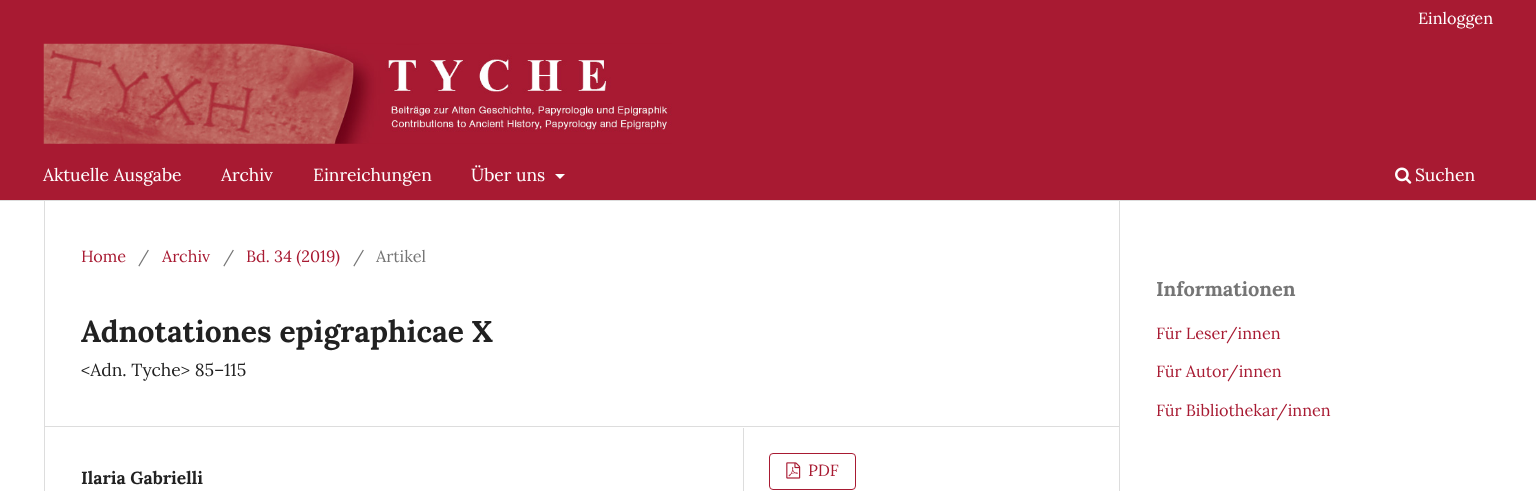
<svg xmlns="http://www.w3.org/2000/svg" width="1536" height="491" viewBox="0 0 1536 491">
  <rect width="100%" height="100%" fill="rgb(255,255,255)"/>
  <rect x="0" y="0" width="1536" height="200" fill="rgb(168,26,50)"/>
  <rect x="0" y="200" width="1536" height="1" fill="rgb(221,221,221)"/>
  <text x="1418" y="24" font-family="Lora" font-size="16.25" fill="rgb(255,255,255)">Einloggen</text>
  <g font-family="Lora" font-size="17.5" fill="rgb(255,255,255)">
    <text x="43" y="181">Aktuelle Ausgabe</text>
    <text x="221" y="181">Archiv</text>
    <text x="313" y="181">Einreichungen</text>
    <text x="471" y="181">Über uns</text>
  </g>
  <path d="M555 174H565L560 179Z" fill="rgb(255,255,255)"/>
  <image x="1395" y="167" width="17" height="17" href="pic1.png"/>
  <text x="1415" y="181" font-family="Lora" font-size="17.5" fill="rgb(255,255,255)">Suchen</text>
  <image x="43" y="43" width="629" height="101" href="pic2.png"/>
  <rect x="44" y="426" width="1075" height="1" fill="rgb(221,221,221)"/>
  <rect x="44" y="201" width="1" height="290" fill="rgb(221,221,221)"/>
  <text x="81" y="262" font-family="Lora" font-size="16.25" fill="rgb(168,26,50)">Home</text>
  <text x="138" y="262" font-family="Lora" font-size="16.25" fill="rgb(117,117,117)">/</text>
  <text x="162" y="262" font-family="Lora" font-size="16.25" fill="rgb(168,26,50)">Archiv</text>
  <text x="223" y="262" font-family="Lora" font-size="16.25" fill="rgb(117,117,117)">/</text>
  <text x="246" y="262" font-family="Lora" font-size="16.25" fill="rgb(168,26,50)">Bd. 34 (2019)</text>
  <g font-family="Lora" font-size="16.25" fill="rgb(117,117,117)">
    <text x="353" y="262">/</text>
    <text x="376" y="262">Artikel</text>
  </g>
  <text x="81" y="342" font-family="Lora" font-size="30" font-weight="bold" fill="rgb(33,33,33)">Adnotationes epigraphicae X</text>
  <text x="81" y="376" font-family="Lora" font-size="17.5" fill="rgb(33,33,33)">&lt;Adn. Tyche&gt; 85–115</text>
  <rect x="743" y="428" width="1" height="63" fill="rgb(221,221,221)"/>
  <text x="81" y="484" font-family="Lora" font-size="17.5" font-weight="bold" fill="rgb(33,33,33)">Ilaria Gabrielli</text>
  <rect x="769.5" y="453.5" width="86" height="36" rx="3.5" fill="none" stroke="rgb(168,26,50)"/>
  <image x="786" y="462" width="15" height="17" href="pic3.png"/>
  <text x="808" y="476" font-family="Lora" font-size="16.25" fill="rgb(168,26,50)">PDF</text>
  <rect x="1119" y="201" width="1" height="290" fill="rgb(221,221,221)"/>
  <text x="1156" y="296" font-family="Lora" font-size="20" font-weight="bold" fill="rgb(117,117,117)">Informationen</text>
  <g font-family="Lora" font-size="16.25" fill="rgb(168,26,50)">
    <text x="1156" y="339">Für Leser/innen</text>
    <text x="1156" y="377">Für Autor/innen</text>
    <text x="1156" y="416">Für Bibliothekar/innen</text>
  </g>
</svg>
